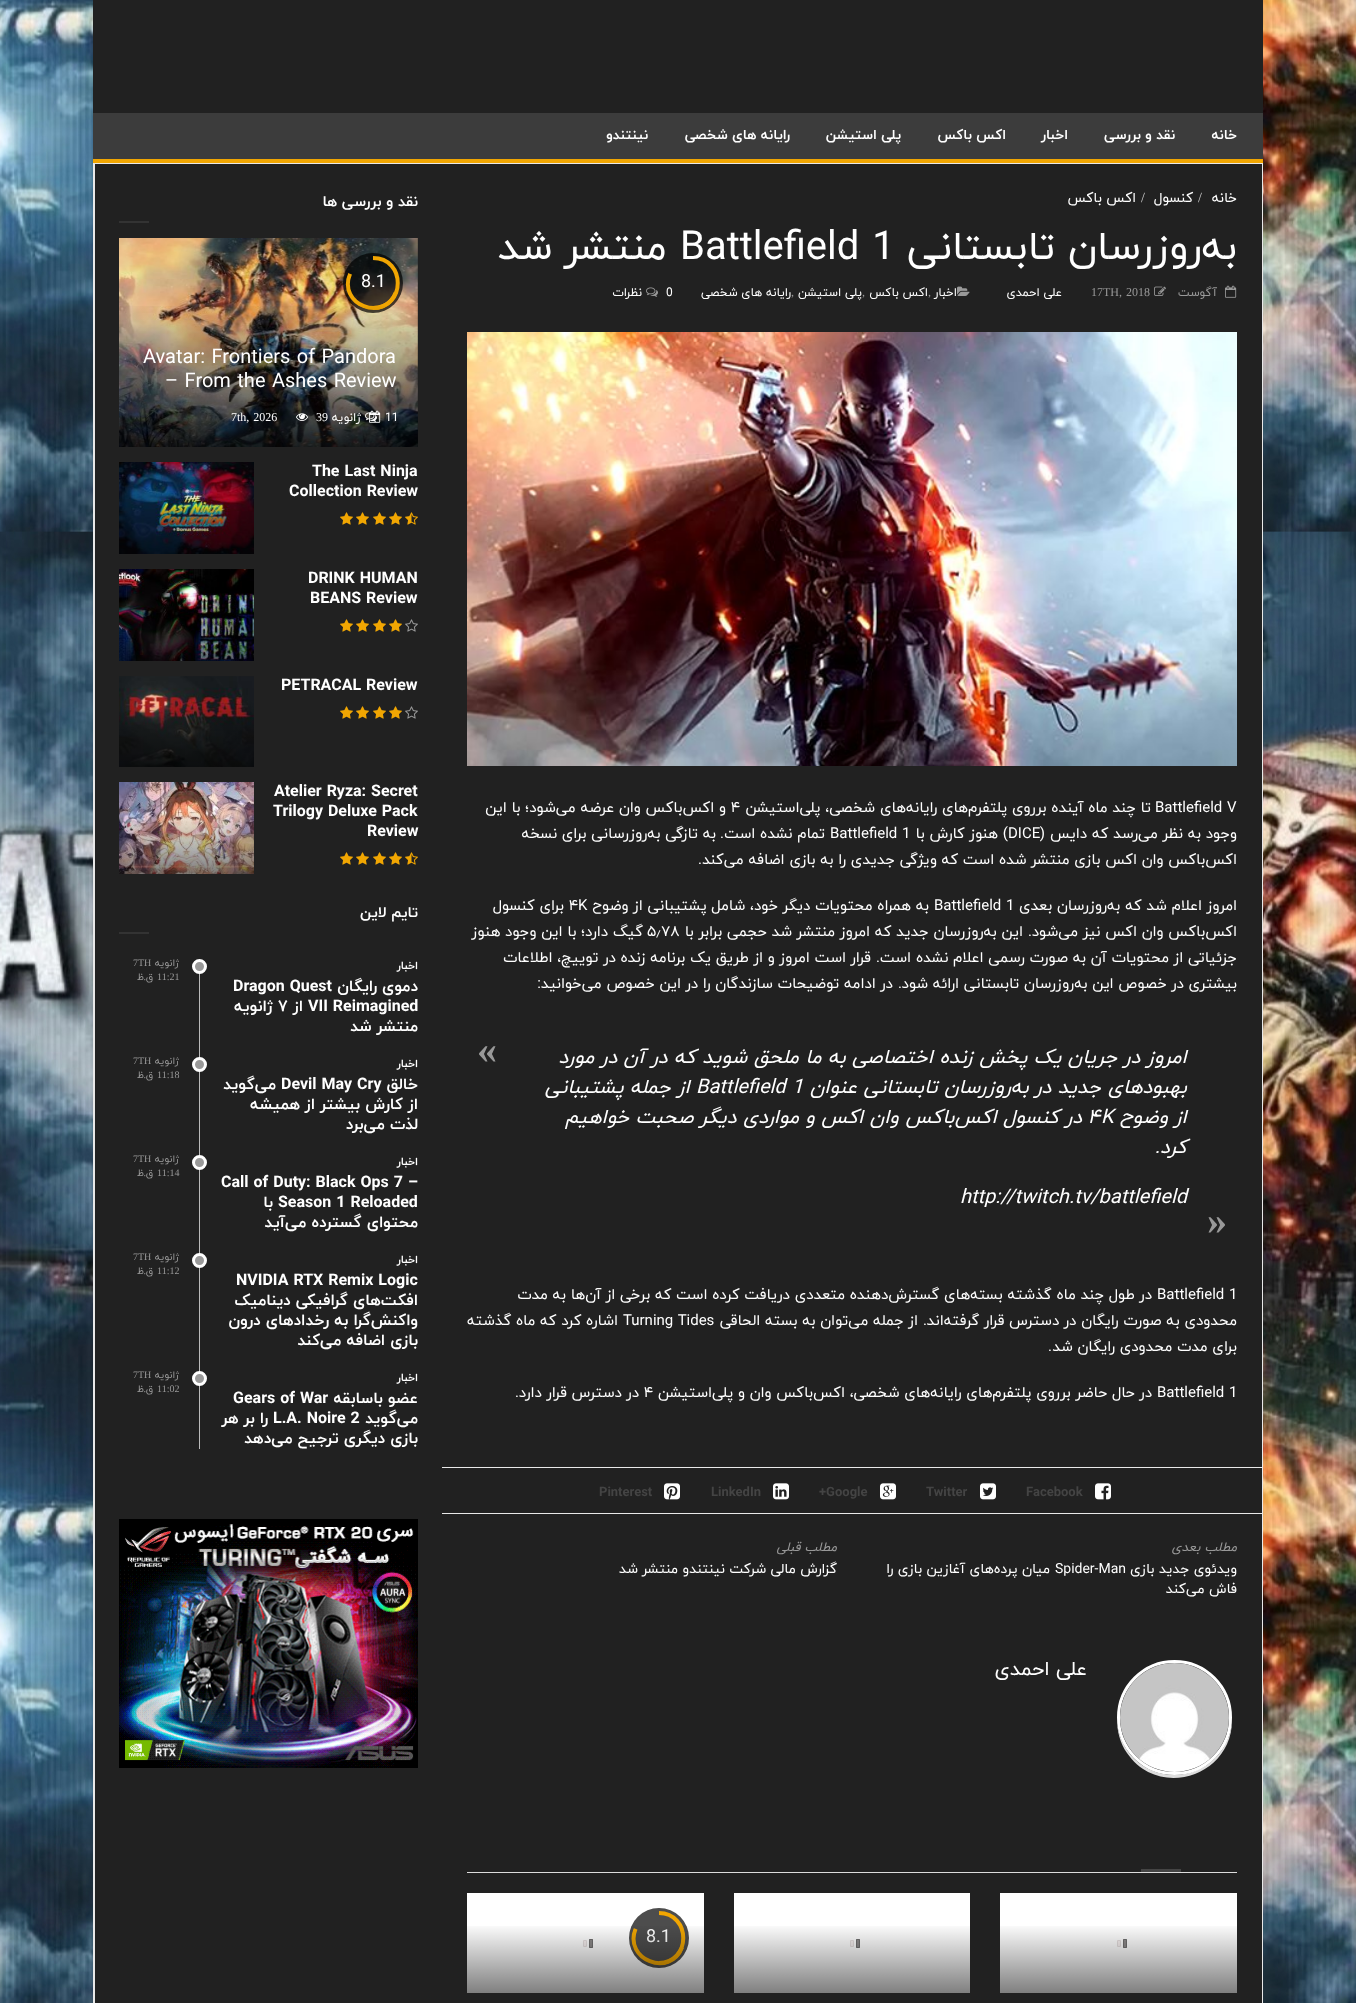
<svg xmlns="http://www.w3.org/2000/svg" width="1356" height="2003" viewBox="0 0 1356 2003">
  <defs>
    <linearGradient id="g1" gradientUnits="userSpaceOnUse" x1="1119" y1="1923" x2="1119" y2="1993"><stop offset="0" stop-color="rgb(0,0,0)" stop-opacity="0"/><stop offset="1" stop-color="rgb(0,0,0)" stop-opacity="0.5"/></linearGradient>
    <linearGradient id="g2" gradientUnits="userSpaceOnUse" x1="852" y1="1923" x2="852" y2="1993"><stop offset="0" stop-color="rgb(0,0,0)" stop-opacity="0"/><stop offset="1" stop-color="rgb(0,0,0)" stop-opacity="0.5"/></linearGradient>
    <clipPath id="clip1"><path d="M623.5 1953.5L633.5 1928L684.5 1948.5L675 1973.5Z"/></clipPath>
    <clipPath id="clip2"><rect x="659" y="1911" width="27" height="54"/></clipPath>
    <linearGradient id="g3" gradientUnits="userSpaceOnUse" x1="586" y1="1923" x2="586" y2="1993"><stop offset="0" stop-color="rgb(0,0,0)" stop-opacity="0"/><stop offset="1" stop-color="rgb(0,0,0)" stop-opacity="0.5"/></linearGradient>
    <clipPath id="clip3"><path d="M338 298L348 273L399 293.5L389 318.5Z"/></clipPath>
    <clipPath id="clip4"><rect x="373" y="256" width="27" height="54"/></clipPath>
    <linearGradient id="g4" gradientUnits="userSpaceOnUse" x1="269" y1="301" x2="269" y2="447"><stop offset="0" stop-color="rgb(0,0,0)" stop-opacity="0"/><stop offset="1" stop-color="rgb(0,0,0)" stop-opacity="0.7"/></linearGradient>
    <linearGradient id="g5" gradientUnits="userSpaceOnUse" x1="187" y1="703" x2="187" y2="767"><stop offset="0" stop-color="rgb(0,0,0)" stop-opacity="0"/><stop offset="1" stop-color="rgb(0,0,0)" stop-opacity="0.5"/></linearGradient>
  </defs>
  <rect width="100%" height="100%" fill="rgb(255,255,255)"/>
  <image x="0" y="0" width="1356" height="2003" href="pic1.png"/>
  <rect x="93" y="0" width="1170" height="113" fill="rgb(33,33,33)"/>
  <rect x="93" y="113" width="1170" height="46" fill="rgb(60,60,60)"/>
  <rect x="93" y="159" width="1170" height="4" fill="rgb(241,166,2)"/>
  <g font-family="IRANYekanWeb" font-size="14" font-weight="bold" direction="rtl" fill="rgb(255,255,255)">
    <text x="1237" y="139">خانه</text>
    <text x="1175" y="139">نقد و بررسی</text>
    <text x="1068" y="139">اخبار</text>
    <text x="1006" y="139">اکس باکس</text>
    <text x="901" y="139">پلی استیشن</text>
    <text x="790" y="139">رایانه های شخصی</text>
    <text x="648" y="139">نینتندو</text>
  </g>
  <rect x="95" y="164" width="1167" height="1839" fill="rgb(33,33,33)"/>
  <rect x="93.5" y="163.5" width="1169" height="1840" fill="none" stroke="rgb(233,233,233)"/>
  <text x="1237" y="202" font-family="IRANYekanWeb" font-size="14" direction="rtl" fill="rgb(255,255,255)">خانه</text>
  <text x="1198" y="202" font-family="Liberation Serif" font-size="14" fill="rgb(204,204,204)">/</text>
  <text x="1193" y="202" font-family="IRANYekanWeb" font-size="14" direction="rtl" fill="rgb(255,255,255)">کنسول</text>
  <text x="1141" y="202" font-family="Liberation Serif" font-size="14" fill="rgb(204,204,204)">/</text>
  <text x="1136" y="202" font-family="IRANYekanWeb" font-size="14" direction="rtl" fill="rgb(255,255,255)">اکس باکس</text>
  <text x="1237" y="259" font-family="IRANYekanWeb" font-size="40" direction="rtl" fill="rgb(255,255,255)">به‌روزرسان تابستانی</text>
  <text x="680" y="259" word-spacing="3" font-family="Roboto" font-size="40" fill="rgb(255,255,255)">Battlefield 1</text>
  <text x="667" y="259" font-family="IRANYekanWeb" font-size="40" direction="rtl" fill="rgb(255,255,255)">منتشر شد</text>
  <image x="1225" y="285" width="12" height="13" href="pic2.png"/>
  <text x="1217" y="296" font-family="IRANYekanWeb" font-size="12" direction="rtl" fill="rgb(153,153,153)">آگوست</text>
  <image x="1154" y="286" width="12" height="10" href="pic3.png"/>
  <text x="1091" y="296" word-spacing="1" font-family="Liberation Serif" font-size="12" fill="rgb(153,153,153)">17TH, 2018</text>
  <text x="1062" y="296" font-family="IRANYekanWeb" font-size="12" direction="rtl" fill="rgb(255,255,255)">علی احمدی</text>
  <image x="957" y="286" width="13" height="10" href="pic4.png"/>
  <text x="957" y="296" font-family="IRANYekanWeb" font-size="12" direction="rtl" fill="rgb(255,255,255)">اخبار</text>
  <text x="928" y="296" font-family="Liberation Serif" font-size="12" fill="rgb(153,153,153)">,</text>
  <text x="928" y="296" font-family="IRANYekanWeb" font-size="12" direction="rtl" fill="rgb(255,255,255)">اکس باکس</text>
  <text x="862" y="296" font-family="Liberation Serif" font-size="12" fill="rgb(153,153,153)">,</text>
  <text x="862" y="296" font-family="IRANYekanWeb" font-size="12" direction="rtl" fill="rgb(255,255,255)">پلی استیشن</text>
  <text x="791" y="296" font-family="Liberation Serif" font-size="12" fill="rgb(153,153,153)">,</text>
  <text x="791" y="296" font-family="IRANYekanWeb" font-size="12" direction="rtl" fill="rgb(255,255,255)">رایانه های شخصی</text>
  <text x="666" y="296" font-family="Roboto" font-size="12" fill="rgb(255,255,255)">0</text>
  <image x="646" y="287" width="12" height="10" href="pic5.png"/>
  <text x="642" y="296" font-family="IRANYekanWeb" font-size="12" direction="rtl" fill="rgb(255,255,255)">نظرات</text>
  <image x="467" y="332" width="770" height="434" href="pic6.png"/>
  <text x="1155" y="812" word-spacing="1" font-family="Roboto" font-size="15" fill="rgb(255,255,255)">Battlefield V</text>
  <text x="1151" y="812" font-family="IRANYekanWeb" font-size="15" direction="rtl" fill="rgb(255,255,255)">تا چند ماه آینده برروی پلتفرم‌های رایانه‌های شخصی، پلی‌استیشن</text>
  <text x="731" y="812" font-family="IRANYekanWeb" font-size="15" fill="rgb(255,255,255)">۴</text>
  <g font-family="IRANYekanWeb" font-size="15" direction="rtl" fill="rgb(255,255,255)">
    <text x="726" y="812">و اکس‌باکس وان عرضه می‌شود؛ با این</text>
    <text x="1237" y="838">وجود به نظر می‌رسد که دایس</text>
  </g>
  <text x="1045" y="838" font-family="Roboto" font-size="15" direction="rtl" fill="rgb(255,255,255)">(</text>
  <text x="1008" y="838" font-family="Roboto" font-size="15" fill="rgb(255,255,255)">DICE</text>
  <text x="1008" y="838" font-family="Roboto" font-size="15" direction="rtl" fill="rgb(255,255,255)">)</text>
  <text x="998" y="838" font-family="IRANYekanWeb" font-size="15" direction="rtl" fill="rgb(255,255,255)">هنوز کارش با</text>
  <text x="830" y="838" word-spacing="1" font-family="Roboto" font-size="15" fill="rgb(255,255,255)">Battlefield 1</text>
  <text x="825" y="838" font-family="IRANYekanWeb" font-size="15" direction="rtl" fill="rgb(255,255,255)">تمام نشده است</text>
  <text x="724" y="838" font-family="Roboto" font-size="15" direction="rtl" fill="rgb(255,255,255)">.</text>
  <g font-family="IRANYekanWeb" font-size="15" direction="rtl" fill="rgb(255,255,255)">
    <text x="716" y="838">به تازگی به‌روزرسانی برای نسخه</text>
    <text x="1237" y="864">اکس‌باکس وان اکس بازی منتشر شده است که ویژگی جدیدی را به بازی اضافه می‌کند</text>
  </g>
  <text x="702" y="864" font-family="Roboto" font-size="15" direction="rtl" fill="rgb(255,255,255)">.</text>
  <text x="1237" y="910" font-family="IRANYekanWeb" font-size="15" direction="rtl" fill="rgb(255,255,255)">امروز اعلام شد که به‌روزرسان بعدی</text>
  <text x="934" y="910" word-spacing="1" font-family="Roboto" font-size="15" fill="rgb(255,255,255)">Battlefield 1</text>
  <text x="929" y="910" font-family="IRANYekanWeb" font-size="15" direction="rtl" fill="rgb(255,255,255)">به همراه محتویات دیگر خود، شامل پشتیبانی از وضوح</text>
  <text x="578" y="910" font-family="Roboto" font-size="15" fill="rgb(255,255,255)">K</text>
  <text x="569" y="910" font-family="IRANYekanWeb" font-size="15" fill="rgb(255,255,255)">۴</text>
  <g font-family="IRANYekanWeb" font-size="15" direction="rtl" fill="rgb(255,255,255)">
    <text x="564" y="910">برای کنسول</text>
    <text x="1237" y="936">اکس‌باکس وان اکس نیز می‌شود</text>
  </g>
  <text x="1032" y="936" font-family="Roboto" font-size="15" direction="rtl" fill="rgb(255,255,255)">.</text>
  <text x="1023" y="936" font-family="IRANYekanWeb" font-size="15" direction="rtl" fill="rgb(255,255,255)">این به‌روزرسان جدید که امروز منتشر شد حجمی برابر با</text>
  <text x="647" y="936" font-family="IRANYekanWeb" font-size="15" fill="rgb(255,255,255)">۵٫۷۸</text>
  <g font-family="IRANYekanWeb" font-size="15" direction="rtl" fill="rgb(255,255,255)">
    <text x="643" y="936">گیگ دارد؛ با این وجود هنوز</text>
    <text x="1237" y="962">جزئیاتی از محتویات آن به صورت رسمی اعلام نشده است</text>
  </g>
  <text x="880" y="962" font-family="Roboto" font-size="15" direction="rtl" fill="rgb(255,255,255)">.</text>
  <g font-family="IRANYekanWeb" font-size="15" direction="rtl" fill="rgb(255,255,255)">
    <text x="871" y="962">قرار است امروز و از طریق یک برنامه زنده در توییچ، اطلاعات</text>
    <text x="1237" y="988">بیشتری در خصوص این به‌روزرسان تابستانی ارائه شود</text>
  </g>
  <text x="902" y="988" font-family="Roboto" font-size="15" direction="rtl" fill="rgb(255,255,255)">.</text>
  <text x="893" y="988" font-family="IRANYekanWeb" font-size="15" direction="rtl" fill="rgb(255,255,255)">در ادامه توضیحات سازندگان را در این خصوص می‌خوانید</text>
  <text x="541" y="988" font-family="Roboto" font-size="15" direction="rtl" fill="rgb(255,255,255)">:</text>
  <g font-family="IRANYekanWeb" font-size="20" font-style="italic" direction="rtl" fill="rgb(255,255,255)">
    <text>
      <tspan x="1187" y="1063">امروز در جریان یک پخش زنده اختصاصی به ما ملحق شوید که در آن در مورد</tspan>
      <tspan x="1187" y="1093">بهبودهای جدید در به‌روزرسان تابستانی عنوان</tspan>
    </text>
  </g>
  <text x="696" y="1093" word-spacing="1.5" font-family="Roboto" font-size="20" font-style="italic" fill="rgb(255,255,255)">Battlefield 1</text>
  <g font-family="IRANYekanWeb" font-size="20" font-style="italic" direction="rtl" fill="rgb(255,255,255)">
    <text x="690" y="1093">از جمله پشتیبانی</text>
    <text x="1187" y="1123">از وضوح</text>
  </g>
  <text x="1088" y="1123" font-family="IRANYekanWeb" font-size="20" font-style="italic" fill="rgb(255,255,255)">۴</text>
  <text x="1101" y="1123" font-family="Roboto" font-size="20" font-style="italic" fill="rgb(255,255,255)">K</text>
  <g font-family="IRANYekanWeb" font-size="20" font-style="italic" direction="rtl" fill="rgb(255,255,255)">
    <text x="1082" y="1123">در کنسول اکس‌باکس وان اکس و مواردی دیگر صحبت خواهیم</text>
    <text x="1187" y="1153">کرد</text>
  </g>
  <text x="1160" y="1153" font-family="Roboto" font-size="20" font-style="italic" direction="rtl" fill="rgb(255,255,255)">.</text>
  <text x="477" y="1063" font-family="Liberation Serif" font-size="40" font-weight="bold" fill="rgb(153,153,153)">«</text>
  <text x="960" y="1203" font-family="Roboto" font-size="20" font-style="italic" fill="rgb(255,255,255)">http://twitch.tv/battlefield</text>
  <text x="1207" y="1234" font-family="Liberation Serif" font-size="40" font-weight="bold" fill="rgb(153,153,153)">»</text>
  <text x="1157" y="1299" word-spacing="1" font-family="Roboto" font-size="15" fill="rgb(255,255,255)">Battlefield 1</text>
  <g font-family="IRANYekanWeb" font-size="15" direction="rtl" fill="rgb(255,255,255)">
    <text x="1152" y="1299">در طول چند ماه گذشته بسته‌های گسترش‌دهنده متعددی دریافت کرده است که برخی از آن‌ها به مدت</text>
    <text x="1237" y="1325">محدودی به صورت رایگان در دسترس قرار گرفته‌اند</text>
  </g>
  <text x="927" y="1325" font-family="Roboto" font-size="15" direction="rtl" fill="rgb(255,255,255)">.</text>
  <text x="918" y="1325" font-family="IRANYekanWeb" font-size="15" direction="rtl" fill="rgb(255,255,255)">از جمله می‌توان به بسته ‌الحاقی</text>
  <text x="623" y="1325" word-spacing="1" font-family="Roboto" font-size="15" fill="rgb(255,255,255)">Turning Tides</text>
  <g font-family="IRANYekanWeb" font-size="15" direction="rtl" fill="rgb(255,255,255)">
    <text x="618" y="1325">اشاره کرد که ماه گذشته</text>
    <text x="1237" y="1351">برای مدت محدودی رایگان شد</text>
  </g>
  <text x="1052" y="1351" font-family="Roboto" font-size="15" direction="rtl" fill="rgb(255,255,255)">.</text>
  <text x="1157" y="1397" word-spacing="1" font-family="Roboto" font-size="15" fill="rgb(255,255,255)">Battlefield 1</text>
  <text x="1152" y="1397" font-family="IRANYekanWeb" font-size="15" direction="rtl" fill="rgb(255,255,255)">در حال حاضر برروی پلتفرم‌های رایانه‌های شخصی، اکس‌باکس وان و پلی‌استیشن</text>
  <text x="644" y="1397" font-family="IRANYekanWeb" font-size="15" fill="rgb(255,255,255)">۴</text>
  <text x="639" y="1397" font-family="IRANYekanWeb" font-size="15" direction="rtl" fill="rgb(255,255,255)">در دسترس قرار دارد</text>
  <text x="519" y="1397" font-family="Roboto" font-size="15" direction="rtl" fill="rgb(255,255,255)">.</text>
  <rect x="442" y="1467" width="820" height="1" fill="rgb(233,233,233)"/>
  <rect x="442" y="1513" width="820" height="1" fill="rgb(233,233,233)"/>
  <image x="1095" y="1483" width="16" height="17" href="pic7.png"/>
  <text x="1026" y="1496" font-family="Roboto" font-size="13" font-weight="bold" fill="rgb(68,68,68)">Facebook</text>
  <image x="980" y="1483" width="16" height="17" href="pic8.png"/>
  <text x="926" y="1496" font-family="Roboto" font-size="13" font-weight="bold" fill="rgb(68,68,68)">Twitter</text>
  <image x="880" y="1483" width="16" height="17" href="pic9.png"/>
  <text x="819" y="1496" font-family="Roboto" font-size="13" font-weight="bold" fill="rgb(68,68,68)">+Google</text>
  <image x="773" y="1483" width="16" height="17" href="pic10.png"/>
  <text x="711" y="1496" font-family="Roboto" font-size="13" font-weight="bold" fill="rgb(68,68,68)">LinkedIn</text>
  <image x="664" y="1483" width="16" height="17" href="pic11.png"/>
  <text x="599" y="1496" font-family="Roboto" font-size="13" font-weight="bold" fill="rgb(68,68,68)">Pinterest</text>
  <text x="1237" y="1551" font-family="IRANYekanWeb" font-size="13" font-style="italic" direction="rtl" fill="rgb(153,153,153)">مطلب بعدی</text>
  <text x="1237" y="1573" font-family="IRANYekanWeb" font-size="14" direction="rtl" fill="rgb(255,255,255)">ویدئوی جدید بازی</text>
  <text x="1055" y="1573" font-family="Roboto" font-size="14" fill="rgb(255,255,255)">Spider-Man</text>
  <g font-family="IRANYekanWeb" font-size="14" direction="rtl" fill="rgb(255,255,255)">
    <text x="1050" y="1573">میان پرده‌های آغازین بازی را</text>
    <text x="1237" y="1593">فاش می‌کند</text>
  </g>
  <text x="837" y="1551" font-family="IRANYekanWeb" font-size="13" font-style="italic" direction="rtl" fill="rgb(153,153,153)">مطلب قبلی</text>
  <text x="837" y="1573" font-family="IRANYekanWeb" font-size="14" direction="rtl" fill="rgb(255,255,255)">گزارش مالی شرکت نینتندو منتشر شد</text>
  <path d="M1117 1719C1117 1731 1120 1743 1127 1753C1159 1800 1233 1776 1232 1719C1231 1750 1206 1775 1174 1775C1143 1775 1118 1750 1117 1719Z" fill="rgb(221,221,221)"/>
  <circle cx="1174.5" cy="1717.5" r="56" fill="none" stroke="rgb(255,255,255)" stroke-width="3"/>
  <image x="1120" y="1663" width="109" height="109" href="pic12.png"/>
  <text x="1087" y="1675" font-family="IRANYekanWeb" font-size="20" direction="rtl" fill="rgb(255,255,255)">علی احمدی</text>
  <rect x="467" y="1872" width="770" height="1" fill="rgb(221,221,221)"/>
  <rect x="1141" y="1869" width="40" height="3" fill="rgb(68,68,68)"/>
  <rect x="1000" y="1893" width="237" height="100" fill="rgb(255,255,255)"/>
  <image x="1117" y="1939" width="10" height="9" href="pic13.png"/>
  <rect x="1000" y="1926" width="237" height="67" fill="url(#g1)"/>
  <rect x="734" y="1893" width="236" height="100" fill="rgb(255,255,255)"/>
  <image x="850" y="1939" width="10" height="9" href="pic13.png"/>
  <rect x="734" y="1926" width="236" height="67" fill="url(#g2)"/>
  <rect x="467" y="1893" width="237" height="100" fill="rgb(255,255,255)"/>
  <image x="583" y="1939" width="10" height="9" href="pic13.png"/>
  <circle cx="659" cy="1938" r="30" fill="rgb(77,77,77)"/>
  <g clip-path="url(#clip1)">
    <path d="M635.5 1929C647.5 1898.5 694 1916.5 682 1947.5C670 1978 623.5 1959.5 635.5 1929Z" fill="none" stroke="rgb(241,166,2)" stroke-width="4"/>
  </g>
  <g clip-path="url(#clip2)">
    <path d="M658.5 1963C625.5 1963 625.5 1913 658.5 1913C691.5 1913 691.5 1963 658.5 1963Z" fill="none" stroke="rgb(241,166,2)" stroke-width="4"/>
  </g>
  <text x="646" y="1942" font-family="Roboto" font-size="18" fill="rgb(255,255,255)">8.1</text>
  <rect x="467" y="1926" width="237" height="67" fill="url(#g3)"/>
  <rect x="94" y="164" width="1" height="1839" fill="rgb(233,233,233)"/>
  <text x="418" y="206" font-family="IRANYekanWeb" font-size="15" font-weight="bold" direction="rtl" fill="rgb(255,255,255)">نقد و بررسی ها</text>
  <rect x="119" y="221" width="30" height="2" fill="rgb(51,51,51)"/>
  <image x="119" y="238" width="299" height="209" href="pic14.png"/>
  <circle cx="373" cy="283" r="30" fill="rgba(0,0,0,0.7)"/>
  <g clip-path="url(#clip3)">
    <path d="M350 274C362 243 408.5 261.5 396 292C384 323 337.5 304.5 350 274Z" fill="none" stroke="rgb(241,166,2)" stroke-width="4"/>
  </g>
  <g clip-path="url(#clip4)">
    <path d="M373 308C340 308 340 258 373 258C406 258 406 308 373 308Z" fill="none" stroke="rgb(241,166,2)" stroke-width="4"/>
  </g>
  <text x="361" y="287" font-family="Roboto" font-size="18" fill="rgb(255,255,255)">8.1</text>
  <rect x="119" y="306" width="299" height="141" fill="url(#g4)"/>
  <g font-family="Roboto" font-size="20" fill="rgb(255,255,255)">
    <text x="143" y="363" word-spacing="1.5">Avatar: Frontiers of Pandora</text>
    <text x="165" y="387" word-spacing="1.5">– From the Ashes Review</text>
  </g>
  <text x="385" y="421" font-family="Roboto" font-size="12" fill="rgb(255,255,255)">11</text>
  <image x="369" y="410" width="12" height="13" href="pic16.png"/>
  <image x="365" y="412" width="12" height="10" href="pic15.png"/>
  <text x="361" y="421" font-family="IRANYekanWeb" font-size="12" direction="rtl" fill="rgb(255,255,255)">ژانویه</text>
  <text x="316" y="421" font-family="Liberation Serif" font-size="12" fill="rgb(255,255,255)">39</text>
  <image x="296" y="413" width="12" height="8" href="pic17.png"/>
  <text x="231" y="421" word-spacing="1" font-family="Liberation Serif" font-size="12" fill="rgb(255,255,255)">7th, 2026</text>
  <g font-family="Roboto" font-size="16" font-weight="bold" fill="rgb(255,255,255)">
    <text x="312" y="476" word-spacing="1">The Last Ninja</text>
    <text x="289" y="496" word-spacing="1">Collection Review</text>
  </g>
  <image x="405" y="512" width="13" height="13" href="pic18.png"/>
  <image x="389" y="512" width="13" height="13" href="pic19.png"/>
  <image x="373" y="512" width="13" height="13" href="pic19.png"/>
  <image x="356" y="512" width="13" height="13" href="pic19.png"/>
  <image x="340" y="512" width="13" height="13" href="pic19.png"/>
  <image x="119" y="462" width="135" height="92" href="pic20.png"/>
  <g font-family="Roboto" font-size="16" font-weight="bold" fill="rgb(255,255,255)">
    <text x="308" y="583" word-spacing="1">DRINK HUMAN</text>
    <text x="310" y="603" word-spacing="1">BEANS Review</text>
  </g>
  <image x="405" y="619" width="13" height="13" href="pic21.png"/>
  <image x="389" y="619" width="13" height="13" href="pic19.png"/>
  <image x="373" y="619" width="13" height="13" href="pic19.png"/>
  <image x="356" y="619" width="13" height="13" href="pic19.png"/>
  <image x="340" y="619" width="13" height="13" href="pic19.png"/>
  <image x="119" y="569" width="135" height="92" href="pic22.png"/>
  <text x="281" y="690" word-spacing="1" font-family="Roboto" font-size="16" font-weight="bold" fill="rgb(255,255,255)">PETRACAL Review</text>
  <image x="405" y="706" width="13" height="13" href="pic21.png"/>
  <image x="389" y="706" width="13" height="13" href="pic19.png"/>
  <image x="373" y="706" width="13" height="13" href="pic19.png"/>
  <image x="356" y="706" width="13" height="13" href="pic19.png"/>
  <image x="340" y="706" width="13" height="13" href="pic19.png"/>
  <image x="119" y="676" width="135" height="91" href="pic23.png"/>
  <rect x="119" y="706" width="135" height="61" fill="url(#g5)"/>
  <g font-family="Roboto" font-size="16" font-weight="bold" fill="rgb(255,255,255)">
    <text x="274" y="796" word-spacing="1">Atelier Ryza: Secret</text>
    <text x="273" y="816" word-spacing="1">Trilogy Deluxe Pack</text>
    <text x="367" y="836">Review</text>
  </g>
  <image x="405" y="852" width="13" height="13" href="pic18.png"/>
  <image x="389" y="852" width="13" height="13" href="pic19.png"/>
  <image x="373" y="852" width="13" height="13" href="pic19.png"/>
  <image x="356" y="852" width="13" height="13" href="pic19.png"/>
  <image x="340" y="852" width="13" height="13" href="pic19.png"/>
  <image x="119" y="782" width="135" height="92" href="pic24.png"/>
  <text x="418" y="917" font-family="IRANYekanWeb" font-size="15" font-weight="bold" direction="rtl" fill="rgb(255,255,255)">تایم لاین</text>
  <rect x="119" y="932" width="30" height="2" fill="rgb(51,51,51)"/>
  <rect x="199" y="959" width="1" height="490" fill="rgb(187,187,187)"/>
  <text x="418" y="969" font-family="IRANYekanWeb" font-size="11" font-weight="bold" direction="rtl" fill="rgb(255,255,255)">اخبار</text>
  <circle cx="199.5" cy="966.5" r="6" fill="rgb(153,153,153)" stroke="rgb(255,255,255)" stroke-width="3"/>
  <text x="418" y="991" font-family="IRANYekanWeb" font-size="16" font-weight="bold" direction="rtl" fill="rgb(255,255,255)">دموی رایگان</text>
  <g font-family="Roboto" font-size="16" font-weight="bold" fill="rgb(255,255,255)">
    <text x="233" y="991" word-spacing="1">Dragon Quest</text>
    <text x="308" y="1011" word-spacing="1">VII Reimagined</text>
  </g>
  <text x="303" y="1011" font-family="IRANYekanWeb" font-size="16" font-weight="bold" direction="rtl" fill="rgb(255,255,255)">از</text>
  <text x="278" y="1011" font-family="IRANYekanWeb" font-size="16" font-weight="bold" fill="rgb(255,255,255)">۷</text>
  <g font-family="IRANYekanWeb" font-size="16" font-weight="bold" direction="rtl" fill="rgb(255,255,255)">
    <text x="273" y="1011">ژانویه</text>
    <text x="418" y="1031">منتشر شد</text>
  </g>
  <text x="179" y="966" font-family="IRANYekanWeb" font-size="10" direction="rtl" fill="rgb(153,153,153)">ژانویه</text>
  <g font-family="Liberation Serif" font-size="10" fill="rgb(153,153,153)">
    <text x="133" y="966">7TH</text>
    <text x="157" y="980">11:21</text>
  </g>
  <text x="153" y="980" font-family="IRANYekanWeb" font-size="10" direction="rtl" fill="rgb(153,153,153)">ق</text>
  <text x="146" y="980" font-family="Liberation Serif" font-size="10" direction="rtl" fill="rgb(153,153,153)">.</text>
  <text x="144" y="980" font-family="IRANYekanWeb" font-size="10" direction="rtl" fill="rgb(153,153,153)">ظ</text>
  <text x="418" y="1067" font-family="IRANYekanWeb" font-size="11" font-weight="bold" direction="rtl" fill="rgb(255,255,255)">اخبار</text>
  <circle cx="199.5" cy="1064.5" r="6" fill="rgb(153,153,153)" stroke="rgb(255,255,255)" stroke-width="3"/>
  <text x="418" y="1089" font-family="IRANYekanWeb" font-size="16" font-weight="bold" direction="rtl" fill="rgb(255,255,255)">خالق</text>
  <text x="281" y="1089" word-spacing="1" font-family="Roboto" font-size="16" font-weight="bold" fill="rgb(255,255,255)">Devil May Cry</text>
  <g font-family="IRANYekanWeb" font-size="16" font-weight="bold" direction="rtl" fill="rgb(255,255,255)">
    <text x="276" y="1089">می‌گوید</text>
    <text>
      <tspan x="418" y="1109">از کارش بیشتر از همیشه</tspan>
      <tspan x="418" y="1129">لذت می‌برد</tspan>
    </text>
  </g>
  <text x="179" y="1064" font-family="IRANYekanWeb" font-size="10" direction="rtl" fill="rgb(153,153,153)">ژانویه</text>
  <g font-family="Liberation Serif" font-size="10" fill="rgb(153,153,153)">
    <text x="133" y="1064">7TH</text>
    <text x="157" y="1078">11:18</text>
  </g>
  <text x="153" y="1078" font-family="IRANYekanWeb" font-size="10" direction="rtl" fill="rgb(153,153,153)">ق</text>
  <text x="146" y="1078" font-family="Liberation Serif" font-size="10" direction="rtl" fill="rgb(153,153,153)">.</text>
  <text x="144" y="1078" font-family="IRANYekanWeb" font-size="10" direction="rtl" fill="rgb(153,153,153)">ظ</text>
  <text x="418" y="1165" font-family="IRANYekanWeb" font-size="11" font-weight="bold" direction="rtl" fill="rgb(255,255,255)">اخبار</text>
  <circle cx="199.5" cy="1162.5" r="6" fill="rgb(153,153,153)" stroke="rgb(255,255,255)" stroke-width="3"/>
  <g font-family="Roboto" font-size="16" font-weight="bold" fill="rgb(255,255,255)">
    <text x="221" y="1187" word-spacing="1">Call of Duty: Black Ops 7 –</text>
    <text x="278" y="1207" word-spacing="1">Season 1 Reloaded</text>
  </g>
  <g font-family="IRANYekanWeb" font-size="16" font-weight="bold" direction="rtl" fill="rgb(255,255,255)">
    <text x="273" y="1207">با</text>
    <text x="418" y="1227">محتوای گسترده می‌آید</text>
  </g>
  <text x="179" y="1162" font-family="IRANYekanWeb" font-size="10" direction="rtl" fill="rgb(153,153,153)">ژانویه</text>
  <g font-family="Liberation Serif" font-size="10" fill="rgb(153,153,153)">
    <text x="133" y="1162">7TH</text>
    <text x="157" y="1176">11:14</text>
  </g>
  <text x="153" y="1176" font-family="IRANYekanWeb" font-size="10" direction="rtl" fill="rgb(153,153,153)">ق</text>
  <text x="146" y="1176" font-family="Liberation Serif" font-size="10" direction="rtl" fill="rgb(153,153,153)">.</text>
  <text x="144" y="1176" font-family="IRANYekanWeb" font-size="10" direction="rtl" fill="rgb(153,153,153)">ظ</text>
  <text x="418" y="1263" font-family="IRANYekanWeb" font-size="11" font-weight="bold" direction="rtl" fill="rgb(255,255,255)">اخبار</text>
  <circle cx="199.5" cy="1260.5" r="6" fill="rgb(153,153,153)" stroke="rgb(255,255,255)" stroke-width="3"/>
  <text x="236" y="1285" word-spacing="1" font-family="Roboto" font-size="16" font-weight="bold" fill="rgb(255,255,255)">NVIDIA RTX Remix Logic</text>
  <g font-family="IRANYekanWeb" font-size="16" font-weight="bold" direction="rtl" fill="rgb(255,255,255)">
    <text>
      <tspan x="418" y="1305">افکت‌های گرافیکی دینامیک</tspan>
      <tspan x="418" y="1325">واکنش‌گرا به رخدادهای درون</tspan>
      <tspan x="418" y="1345">بازی اضافه می‌کند</tspan>
    </text>
  </g>
  <text x="179" y="1260" font-family="IRANYekanWeb" font-size="10" direction="rtl" fill="rgb(153,153,153)">ژانویه</text>
  <g font-family="Liberation Serif" font-size="10" fill="rgb(153,153,153)">
    <text x="133" y="1260">7TH</text>
    <text x="157" y="1274">11:12</text>
  </g>
  <text x="153" y="1274" font-family="IRANYekanWeb" font-size="10" direction="rtl" fill="rgb(153,153,153)">ق</text>
  <text x="146" y="1274" font-family="Liberation Serif" font-size="10" direction="rtl" fill="rgb(153,153,153)">.</text>
  <text x="144" y="1274" font-family="IRANYekanWeb" font-size="10" direction="rtl" fill="rgb(153,153,153)">ظ</text>
  <text x="418" y="1381" font-family="IRANYekanWeb" font-size="11" font-weight="bold" direction="rtl" fill="rgb(255,255,255)">اخبار</text>
  <circle cx="199.5" cy="1378.5" r="6" fill="rgb(153,153,153)" stroke="rgb(255,255,255)" stroke-width="3"/>
  <text x="418" y="1403" font-family="IRANYekanWeb" font-size="16" font-weight="bold" direction="rtl" fill="rgb(255,255,255)">عضو باسابقه</text>
  <text x="233" y="1403" word-spacing="1" font-family="Roboto" font-size="16" font-weight="bold" fill="rgb(255,255,255)">Gears of War</text>
  <text x="418" y="1423" font-family="IRANYekanWeb" font-size="16" font-weight="bold" direction="rtl" fill="rgb(255,255,255)">می‌گوید</text>
  <text x="273" y="1423" word-spacing="1" font-family="Roboto" font-size="16" font-weight="bold" fill="rgb(255,255,255)">L.A. Noire 2</text>
  <g font-family="IRANYekanWeb" font-size="16" font-weight="bold" direction="rtl" fill="rgb(255,255,255)">
    <text x="268" y="1423">را بر هر</text>
    <text x="418" y="1443">بازی دیگری ترجیح می‌دهد</text>
  </g>
  <text x="179" y="1378" font-family="IRANYekanWeb" font-size="10" direction="rtl" fill="rgb(153,153,153)">ژانویه</text>
  <g font-family="Liberation Serif" font-size="10" fill="rgb(153,153,153)">
    <text x="133" y="1378">7TH</text>
    <text x="157" y="1392">11:02</text>
  </g>
  <text x="153" y="1392" font-family="IRANYekanWeb" font-size="10" direction="rtl" fill="rgb(153,153,153)">ق</text>
  <text x="146" y="1392" font-family="Liberation Serif" font-size="10" direction="rtl" fill="rgb(153,153,153)">.</text>
  <text x="144" y="1392" font-family="IRANYekanWeb" font-size="10" direction="rtl" fill="rgb(153,153,153)">ظ</text>
  <image x="119" y="1519" width="299" height="249" href="pic25.png"/>
</svg>
